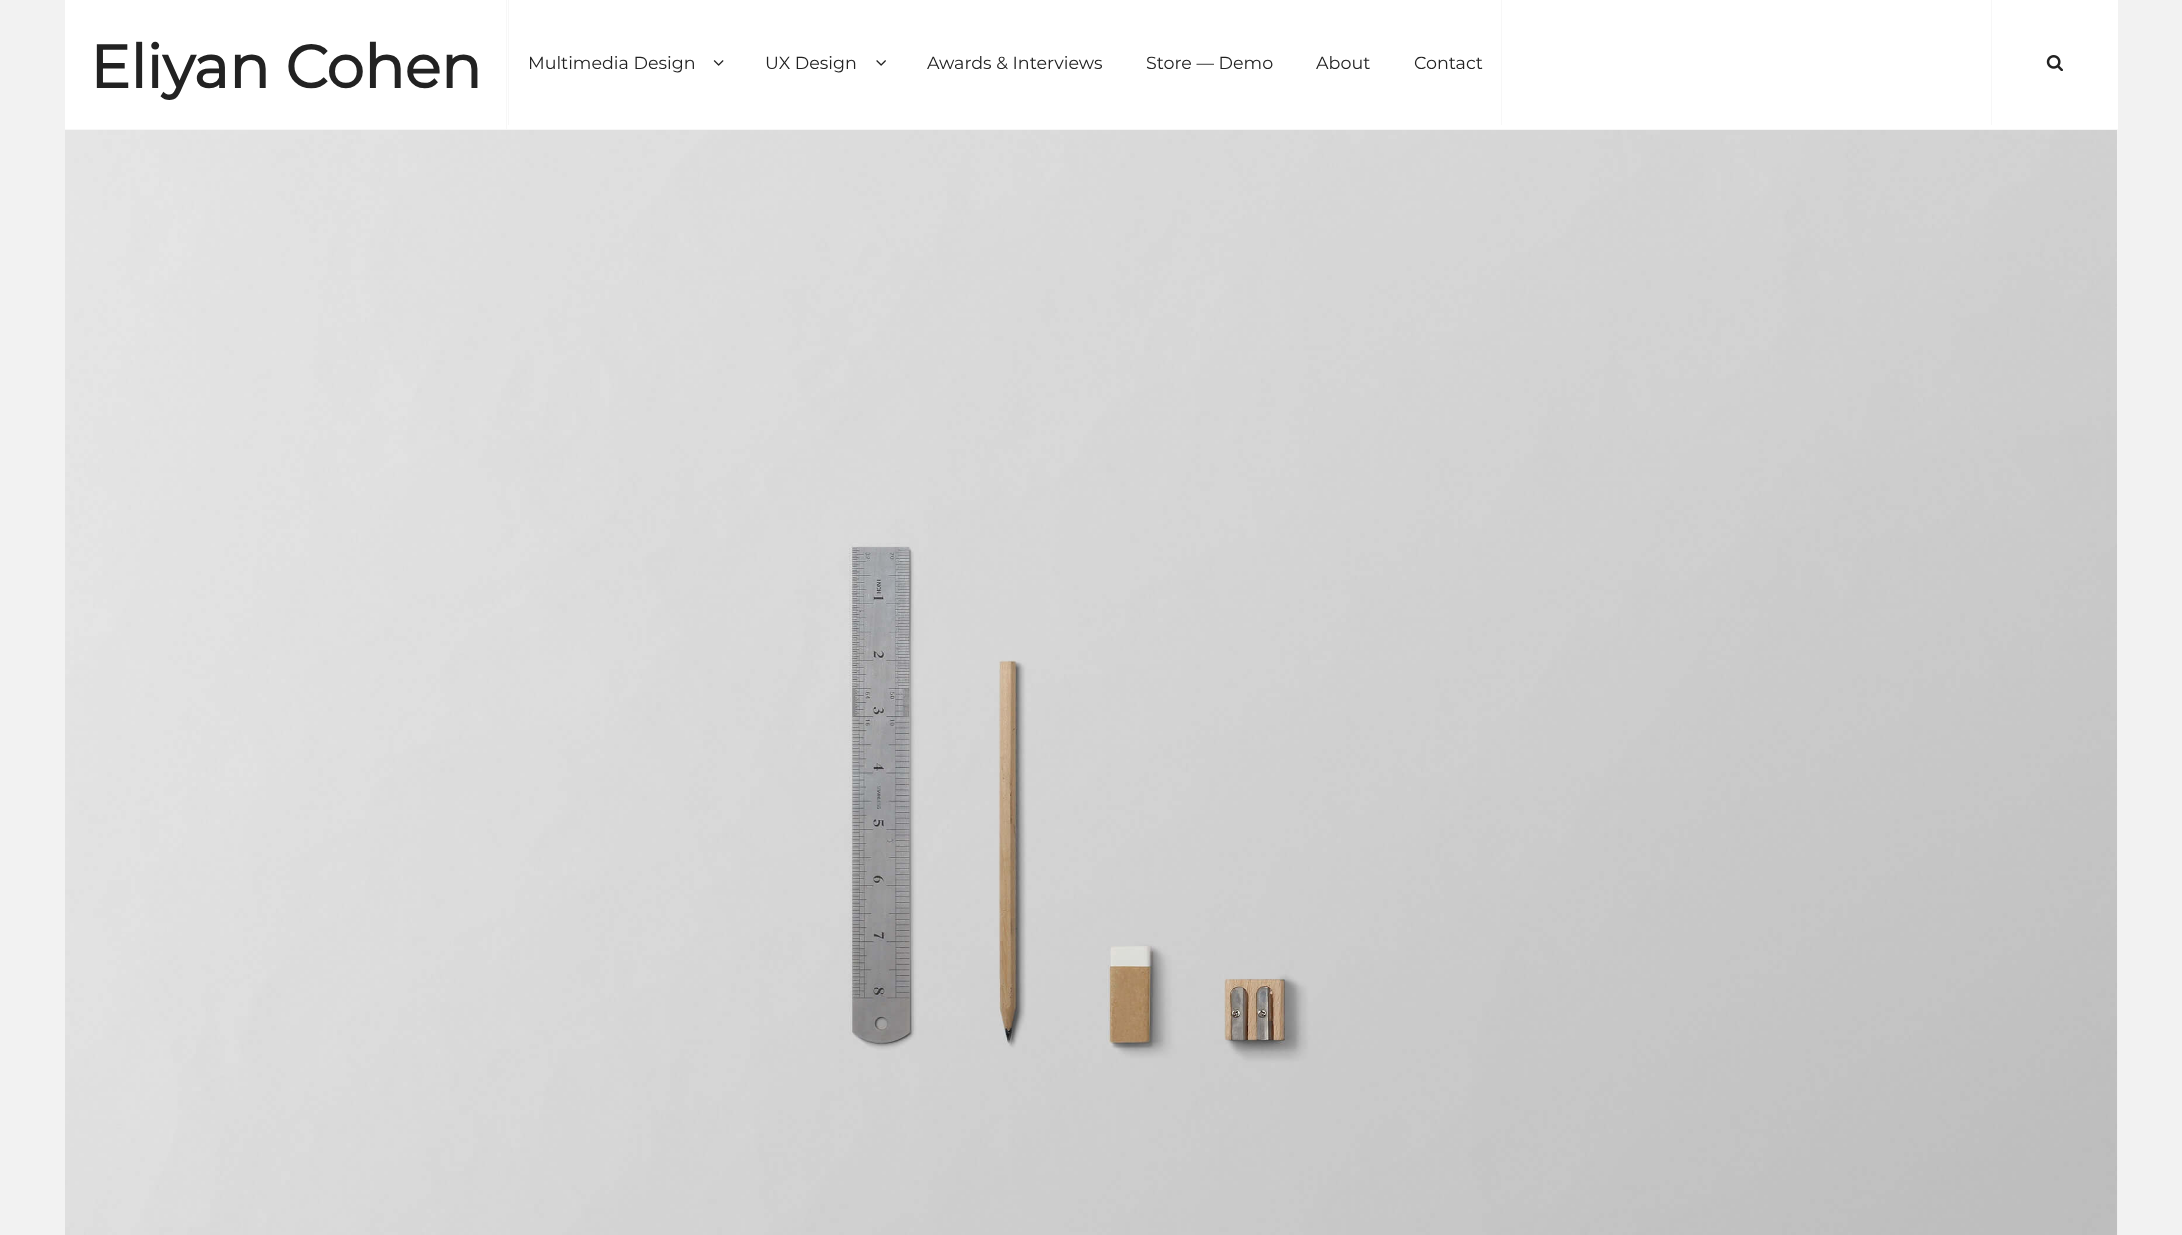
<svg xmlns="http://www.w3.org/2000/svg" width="2182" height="1235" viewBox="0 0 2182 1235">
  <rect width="100%" height="100%" fill="rgb(242,242,242)"/>
  <rect x="65" y="0" width="2053" height="1235" fill="rgb(255,255,255)"/>
  <rect x="65" y="129" width="2053" height="1" fill="rgb(247,247,247)"/>
  <rect x="506" y="0" width="1" height="129" fill="rgb(247,247,247)"/>
  <text x="90" y="88" font-family="Montserrat" font-size="60" font-weight="bold" fill="rgb(34,34,34)">Eliyan Cohen</text>
  <rect x="1501" y="0" width="1" height="125" fill="rgb(247,247,247)"/>
  <rect x="508" y="0" width="1" height="125" fill="rgb(247,247,247)"/>
  <text x="528" y="69" font-family="Montserrat" font-size="17.5" font-weight="100" fill="rgb(34,34,34)">Multimedia Design</text>
  <image x="713" y="60" width="11" height="6" href="pic1.png"/>
  <text x="765" y="69" font-family="Montserrat" font-size="17.5" font-weight="100" fill="rgb(34,34,34)">UX Design</text>
  <image x="876" y="60" width="10" height="6" href="pic2.png"/>
  <g font-family="Montserrat" font-size="17.5" font-weight="100" fill="rgb(34,34,34)">
    <text x="927" y="69">Awards &amp; Interviews</text>
    <text x="1146" y="69">Store — Demo</text>
    <text x="1316" y="69">About</text>
    <text x="1414" y="69">Contact</text>
  </g>
  <rect x="1991" y="0" width="1" height="125" fill="rgb(247,247,247)"/>
  <image x="2046" y="55" width="17" height="16" href="pic3.png"/>
  <image x="65" y="130" width="2053" height="1105" href="pic4.png"/>
</svg>
